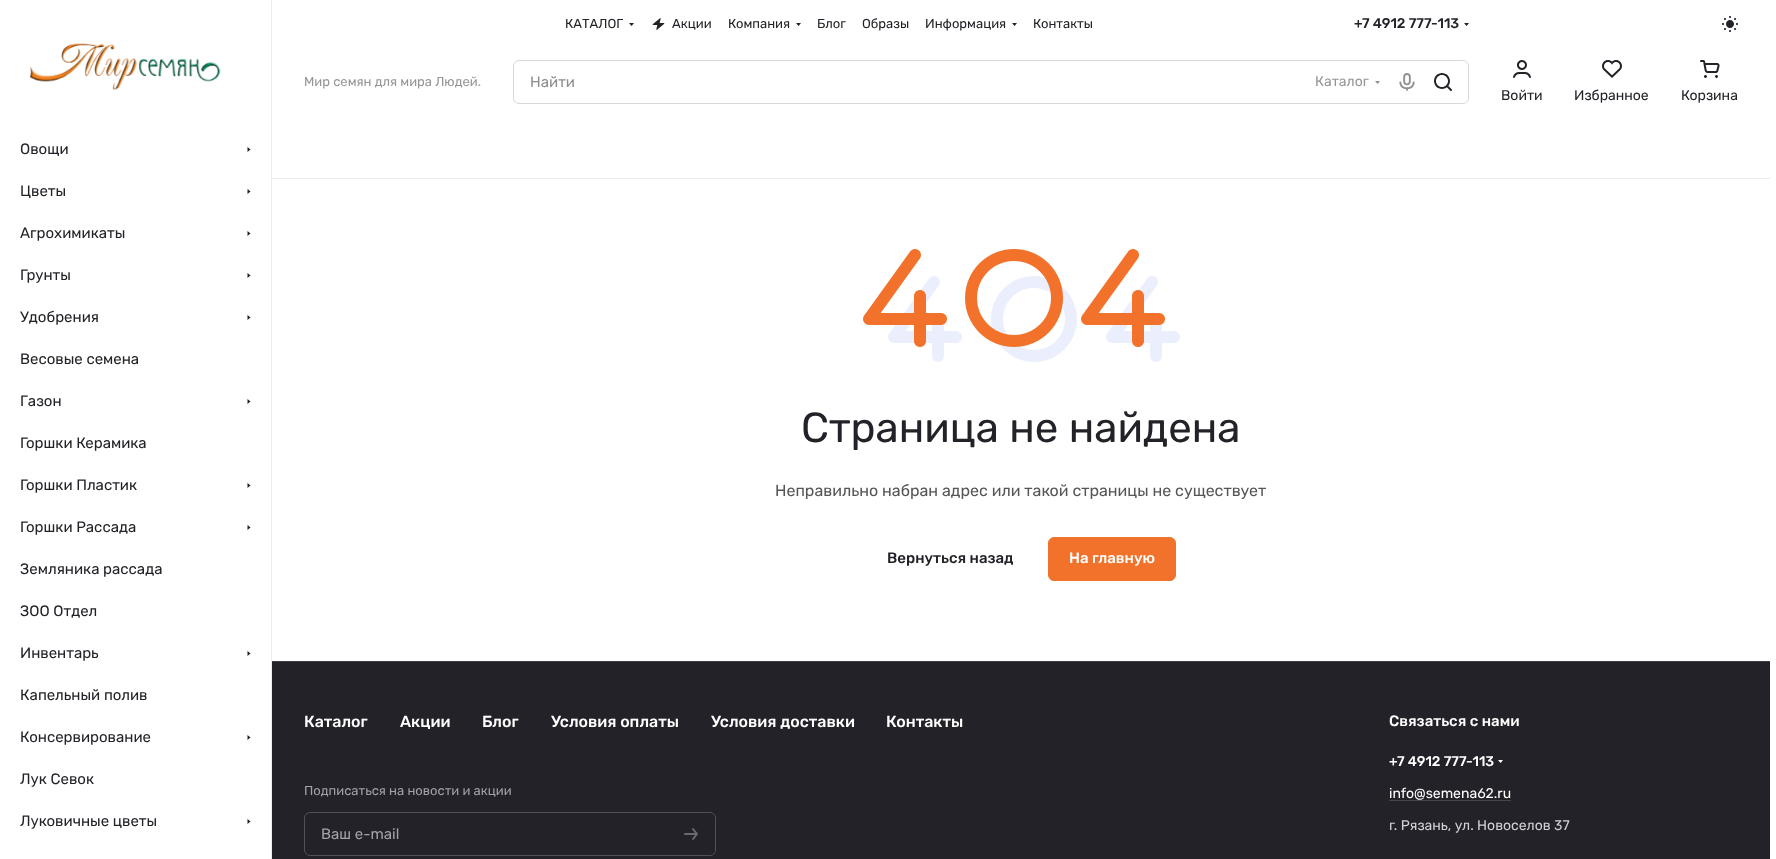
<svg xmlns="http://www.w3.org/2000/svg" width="1776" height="859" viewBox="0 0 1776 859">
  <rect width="100%" height="100%" fill="rgb(255,255,255)"/>
  <rect x="271" y="0" width="1" height="859" fill="rgb(235,236,239)"/>
  <image x="29" y="43" width="192" height="47" href="pic1.png"/>
  <text x="20" y="154" font-family="'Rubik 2'" font-size="15" font-weight="300" fill="rgb(34,34,40)">Овощи</text>
  <image x="247" y="147" width="4" height="5" href="pic2.png"/>
  <text x="20" y="196" font-family="'Rubik 2'" font-size="15" font-weight="300" fill="rgb(34,34,40)">Цветы</text>
  <image x="247" y="189" width="4" height="5" href="pic2.png"/>
  <text x="20" y="238" font-family="'Rubik 2'" font-size="15" font-weight="300" fill="rgb(34,34,40)">Агрохимикаты</text>
  <image x="247" y="231" width="4" height="5" href="pic2.png"/>
  <text x="20" y="280" font-family="'Rubik 2'" font-size="15" font-weight="300" fill="rgb(34,34,40)">Грунты</text>
  <image x="247" y="273" width="4" height="5" href="pic2.png"/>
  <text x="20" y="322" font-family="'Rubik 2'" font-size="15" font-weight="300" fill="rgb(34,34,40)">Удобрения</text>
  <image x="247" y="315" width="4" height="5" href="pic2.png"/>
  <g font-family="'Rubik 2'" font-size="15" font-weight="300" fill="rgb(34,34,40)">
    <text x="20" y="364">Весовые семена</text>
    <text x="20" y="406">Газон</text>
  </g>
  <image x="247" y="399" width="4" height="5" href="pic2.png"/>
  <g font-family="'Rubik 2'" font-size="15" font-weight="300" fill="rgb(34,34,40)">
    <text x="20" y="448">Горшки Керамика</text>
    <text x="20" y="490">Горшки Пластик</text>
  </g>
  <image x="247" y="483" width="4" height="5" href="pic2.png"/>
  <text x="20" y="532" font-family="'Rubik 2'" font-size="15" font-weight="300" fill="rgb(34,34,40)">Горшки Рассада</text>
  <image x="247" y="525" width="4" height="5" href="pic2.png"/>
  <g font-family="'Rubik 2'" font-size="15" font-weight="300" fill="rgb(34,34,40)">
    <text x="20" y="574">Земляника рассада</text>
    <text x="20" y="616">ЗОО Отдел</text>
    <text x="20" y="658">Инвентарь</text>
  </g>
  <image x="247" y="651" width="4" height="5" href="pic2.png"/>
  <g font-family="'Rubik 2'" font-size="15" font-weight="300" fill="rgb(34,34,40)">
    <text x="20" y="700">Капельный полив</text>
    <text x="20" y="742">Консервирование</text>
  </g>
  <image x="247" y="735" width="4" height="5" href="pic2.png"/>
  <g font-family="'Rubik 2'" font-size="15" font-weight="300" fill="rgb(34,34,40)">
    <text x="20" y="784">Лук Севок</text>
    <text x="20" y="826">Луковичные цветы</text>
  </g>
  <image x="247" y="819" width="4" height="5" href="pic2.png"/>
  <rect x="272" y="178" width="1498" height="1" fill="rgb(237,237,237)"/>
  <text x="565" y="28" font-family="'Rubik 2'" font-size="13" font-weight="300" fill="rgb(34,34,40)">КАТАЛОГ</text>
  <image x="629" y="23" width="5" height="3" href="pic3.png"/>
  <image x="652" y="18" width="13" height="12" href="pic4.png"/>
  <g font-family="'Rubik 2'" font-size="13" font-weight="300" fill="rgb(34,34,40)">
    <text x="672" y="28">Акции</text>
    <text x="728" y="28">Компания</text>
  </g>
  <image x="796" y="23" width="5" height="3" href="pic3.png"/>
  <g font-family="'Rubik 2'" font-size="13" font-weight="300" fill="rgb(34,34,40)">
    <text x="817" y="28">Блог</text>
    <text x="862" y="28">Образы</text>
    <text x="925" y="28">Информация</text>
  </g>
  <image x="1012" y="23" width="5" height="3" href="pic3.png"/>
  <text x="1033" y="28" font-family="'Rubik 2'" font-size="13" font-weight="300" fill="rgb(34,34,40)">Контакты</text>
  <text x="1354" y="28" font-family="Rubik" font-size="14" font-weight="300" fill="rgb(34,34,40)">+7 4912 777-113</text>
  <image x="1464" y="23" width="5" height="3" href="pic3.png"/>
  <image x="1722" y="16" width="16" height="16" href="pic5.png"/>
  <text x="304" y="86" font-family="'Rubik 2'" font-size="13" font-weight="300" fill="rgb(149,149,152)">Мир семян для мира Людей.</text>
  <rect x="513.5" y="60.5" width="955" height="43" rx="5.5" fill="none" stroke="rgb(215,216,218)"/>
  <text x="530" y="87" font-family="'Rubik 2'" font-size="15" font-weight="300" fill="rgb(141,141,141)">Найти</text>
  <text x="1315" y="86" font-family="'Rubik 2'" font-size="14" font-weight="300" fill="rgb(149,149,152)">Каталог</text>
  <image x="1375" y="81" width="5" height="3" href="pic6.png"/>
  <image x="1399" y="73" width="16" height="18" href="pic7.png"/>
  <image x="1434" y="73" width="18" height="18" href="pic8.png"/>
  <image x="1513" y="60" width="18" height="18" href="pic9.png"/>
  <text x="1501" y="100" font-family="'Rubik 2'" font-size="14" font-weight="300" fill="rgb(34,34,40)">Войти</text>
  <image x="1602" y="60" width="20" height="18" href="pic10.png"/>
  <text x="1574" y="100" font-family="'Rubik 2'" font-size="14" font-weight="300" fill="rgb(34,34,40)">Избранное</text>
  <image x="1700" y="60" width="20" height="18" href="pic11.png"/>
  <text x="1681" y="100" font-family="'Rubik 2'" font-size="14" font-weight="300" fill="rgb(34,34,40)">Корзина</text>
  <image x="863" y="249" width="317" height="113" href="pic12.png"/>
  <text x="801" y="442" font-family="'Rubik 2'" font-size="42" font-weight="300" fill="rgb(34,34,40)">Страница не найдена</text>
  <text x="775" y="496" font-family="'Rubik 2'" font-size="16" font-weight="300" fill="rgb(85,85,88)">Неправильно набран адрес или такой страницы не существует</text>
  <text x="887" y="563" font-family="Rubik" font-size="15" font-weight="300" fill="rgb(34,34,40)">Вернуться назад</text>
  <rect x="1048.5" y="537.5" width="127" height="43" rx="5.5" fill="rgb(242,114,44)" stroke="rgb(242,114,44)"/>
  <text x="1069" y="563" font-family="Rubik" font-size="15" font-weight="300" fill="rgb(255,255,255)">На главную</text>
  <rect x="272" y="662" width="1498" height="197" fill="rgb(34,34,40)"/>
  <rect x="272" y="661" width="1498" height="1" fill="rgb(63,63,69)"/>
  <g font-family="Rubik" font-size="16" font-weight="300" fill="rgb(255,255,255)">
    <text x="304" y="727">Каталог</text>
    <text x="400" y="727">Акции</text>
    <text x="482" y="727">Блог</text>
    <text x="551" y="727">Условия оплаты</text>
    <text x="711" y="727">Условия доставки</text>
    <text x="886" y="727">Контакты</text>
  </g>
  <text x="304" y="795" font-family="'Rubik 2'" font-size="13" font-weight="300" fill="rgb(161,161,167)">Подписаться на новости и акции</text>
  <rect x="304.5" y="812.5" width="411" height="43" rx="5.5" fill="none" stroke="rgb(80,80,86)"/>
  <text x="321" y="839" font-family="'Rubik 2'" font-size="15" font-weight="300" fill="rgb(161,161,167)">Ваш e-mail</text>
  <rect x="667" y="813" width="48" height="42" rx="6" fill="rgb(34,34,40)"/>
  <image x="684" y="828" width="14" height="12" href="pic13.png"/>
  <text x="1389" y="726" font-family="Rubik" font-size="15" font-weight="300" fill="rgb(255,255,255)">Связаться с нами</text>
  <text x="1389" y="766" font-family="Rubik" font-size="14" font-weight="300" fill="rgb(255,255,255)">+7 4912 777-113</text>
  <image x="1498" y="760" width="5" height="3" href="pic14.png"/>
  <text x="1389" y="798" font-family="'Rubik 2'" font-size="14" font-weight="300" fill="rgb(255,255,255)">info@semena62.ru</text>
  <rect x="1389" y="800" width="122" height="1" fill="rgb(69,69,74)"/>
  <text x="1389" y="830" font-family="'Rubik 2'" font-size="14" font-weight="300" fill="rgb(209,209,215)">г. Рязань, ул. Новоселов 37</text>
</svg>
